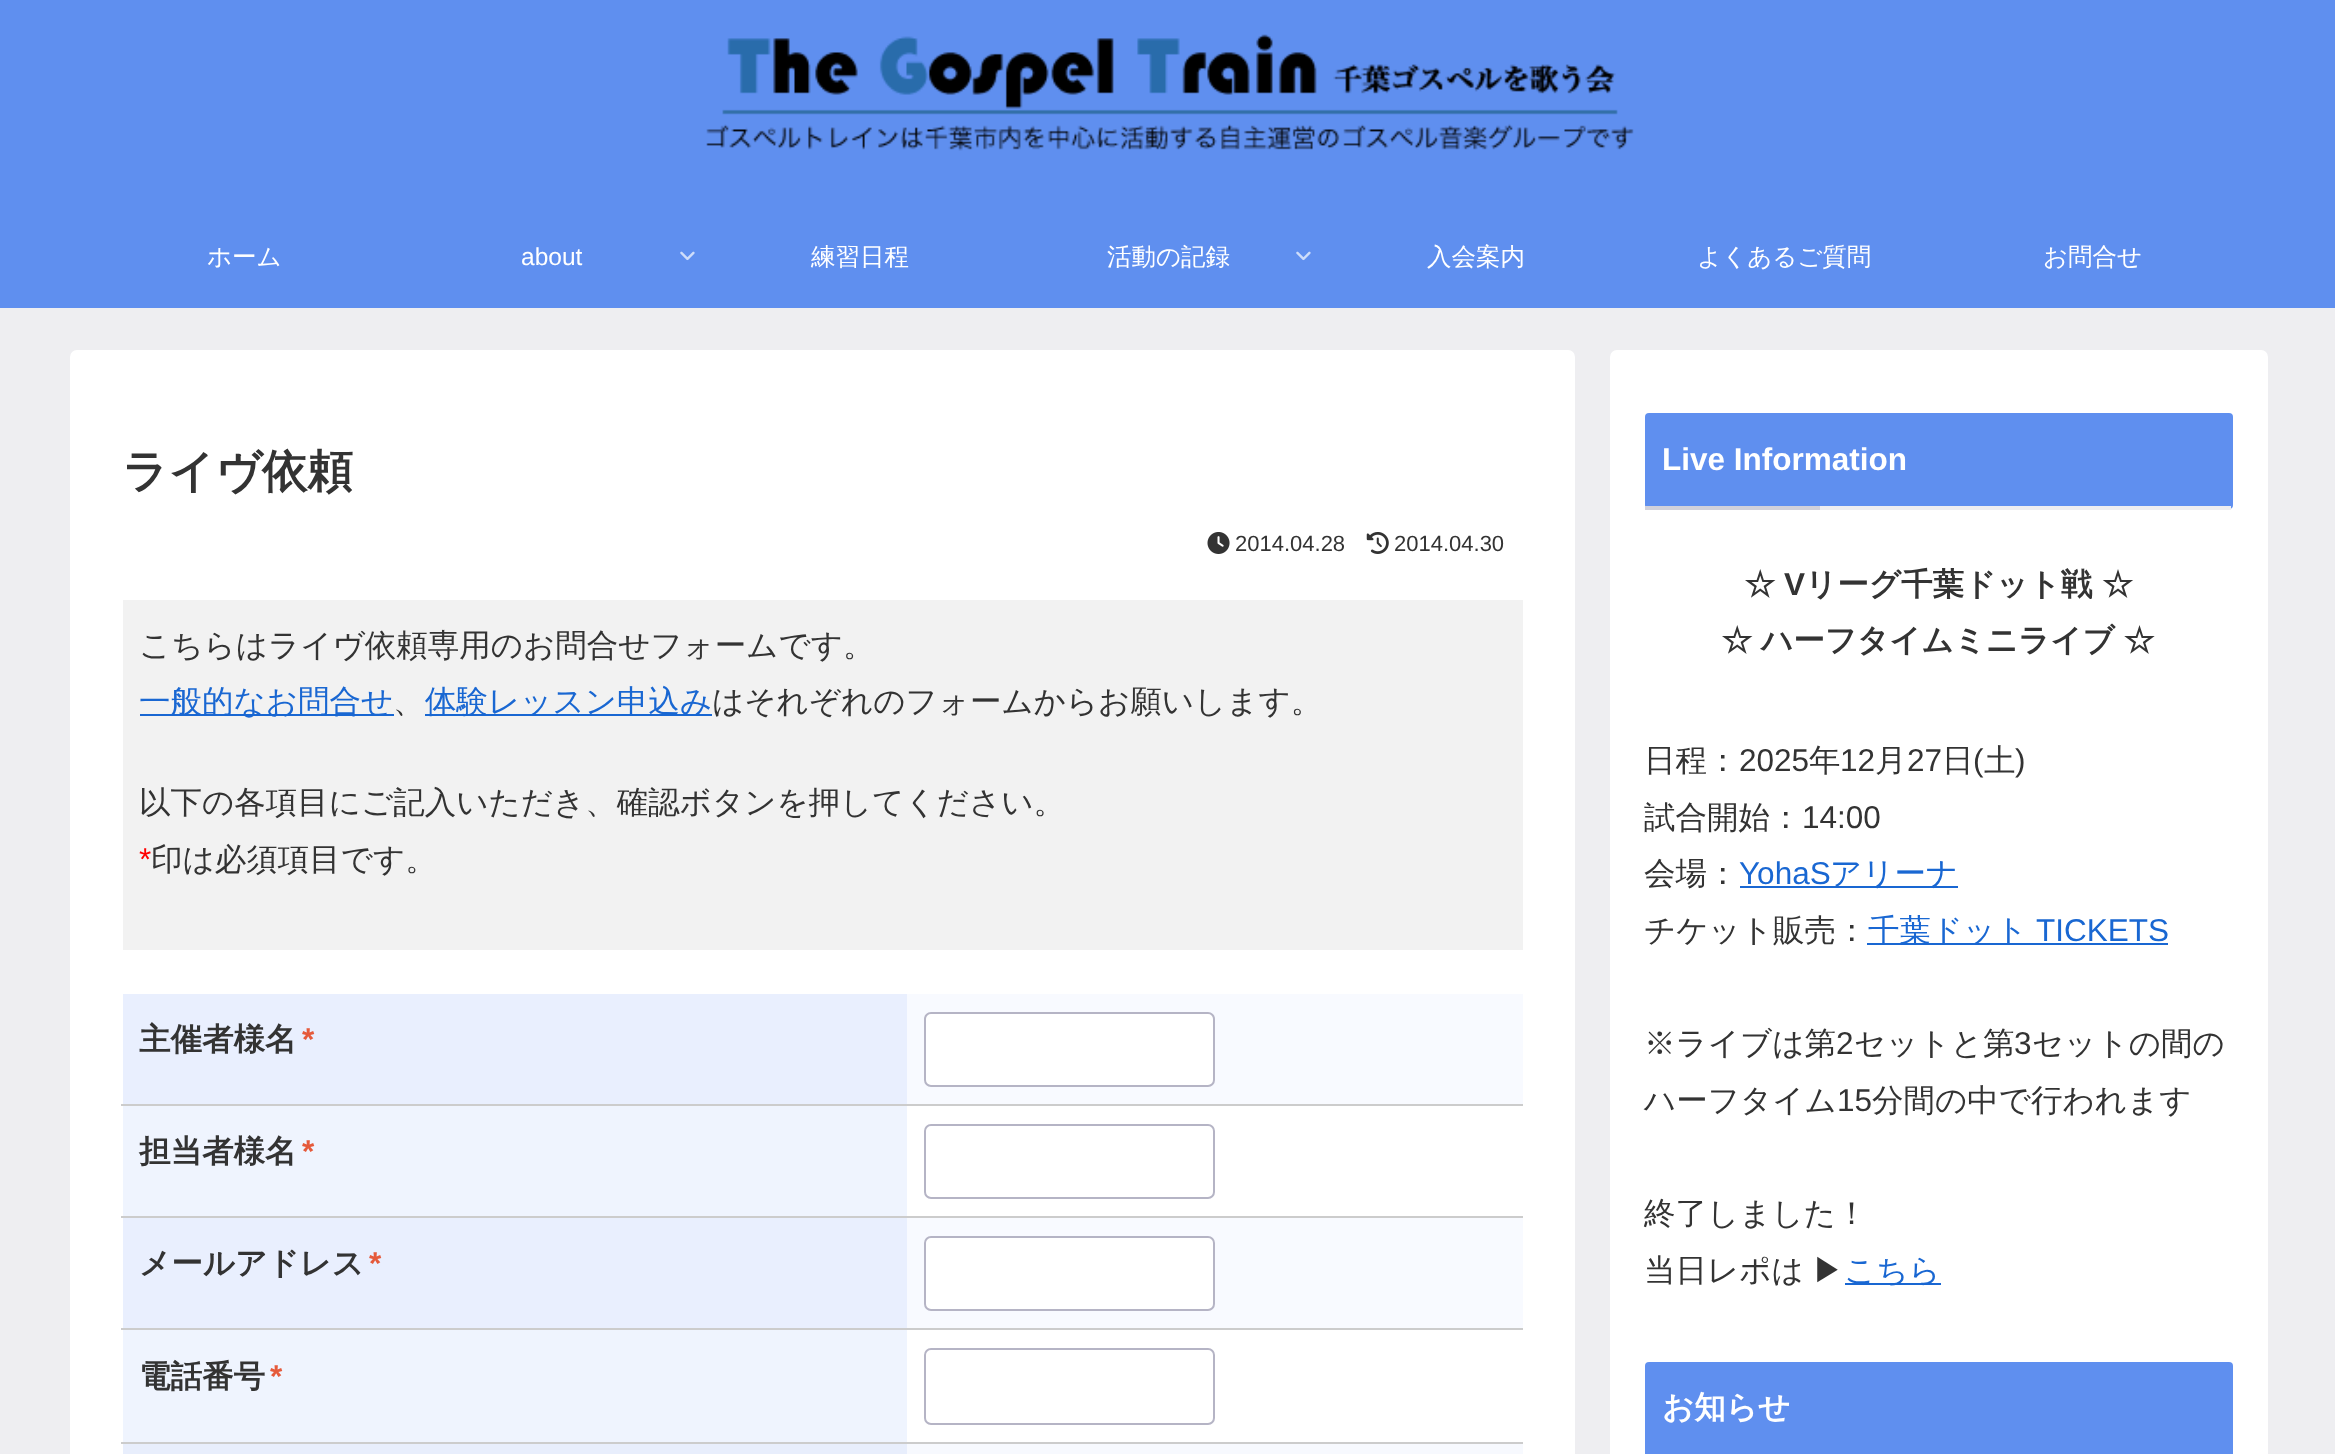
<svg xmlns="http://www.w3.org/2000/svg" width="2335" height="1454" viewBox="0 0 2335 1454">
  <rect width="100%" height="100%" fill="rgb(238,238,241)"/>
  <rect x="0" y="0" width="2335" height="308" fill="rgb(95,143,239)"/>
  <image x="706" y="34" width="928" height="117" href="pic1.png"/>
  <text x="207" y="265" font-family="WenQuanYi Zen Hei" font-size="24.5" font-weight="500" fill="rgb(255,255,255)">ホーム</text>
  <text x="521" y="265" font-family="Liberation Sans" font-size="24.5" fill="rgb(255,255,255)">about</text>
  <image x="680" y="251" width="15" height="10" href="pic2.png"/>
  <g font-family="WenQuanYi Zen Hei" font-size="24.5" font-weight="500" fill="rgb(255,255,255)">
    <text x="811" y="265">練習日程</text>
    <text x="1107" y="265">活動の記録</text>
  </g>
  <image x="1296" y="251" width="15" height="10" href="pic2.png"/>
  <g font-family="WenQuanYi Zen Hei" font-size="24.5" font-weight="500" fill="rgb(255,255,255)">
    <text x="1427" y="265">入会案内</text>
    <text x="1697" y="265">よくあるご質問</text>
    <text x="2043" y="265">お問合せ</text>
  </g>
  <rect x="70" y="350" width="1505" height="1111" rx="7" fill="rgb(255,255,255)"/>
  <text x="122" y="487" font-family="WenQuanYi Zen Hei" font-size="45.5" font-weight="bold" fill="rgb(51,51,51)">ライヴ依頼</text>
  <image x="1207" y="532" width="23" height="22" href="pic3.png"/>
  <text x="1235" y="551" font-family="Liberation Sans" font-size="22" fill="rgb(51,51,51)">2014.04.28</text>
  <image x="1366" y="532" width="23" height="22" href="pic4.png"/>
  <text x="1394" y="551" font-family="Liberation Sans" font-size="22" fill="rgb(51,51,51)">2014.04.30</text>
  <rect x="123" y="600" width="1400" height="350" fill="rgb(242,242,242)"/>
  <text x="139" y="656" font-family="WenQuanYi Zen Hei" font-size="31.5" font-weight="500" fill="rgb(51,51,51)">こちらはライヴ依頼専用のお問合せフォームです。</text>
  <rect x="140" y="714" width="254" height="2" fill="rgb(25,103,210)"/>
  <text x="139" y="712" font-family="WenQuanYi Zen Hei" font-size="31.5" font-weight="500" fill="rgb(25,103,210)">一般的なお問合せ</text>
  <text x="393" y="712" font-family="WenQuanYi Zen Hei" font-size="31.5" font-weight="500" fill="rgb(51,51,51)">、</text>
  <rect x="425" y="714" width="287" height="2" fill="rgb(25,103,210)"/>
  <text x="425" y="712" font-family="WenQuanYi Zen Hei" font-size="31.5" font-weight="500" fill="rgb(25,103,210)">体験レッスン申込み</text>
  <g font-family="WenQuanYi Zen Hei" font-size="31.5" font-weight="500" fill="rgb(51,51,51)">
    <text x="712" y="712">はそれぞれのフォームからお願いします。</text>
    <text x="139" y="813">以下の各項目にご記入いただき、確認ボタンを押してください。</text>
  </g>
  <text x="139" y="870" font-family="Liberation Sans" font-size="31.5" fill="rgb(255,0,0)">*</text>
  <text x="151" y="870" font-family="WenQuanYi Zen Hei" font-size="31.5" font-weight="500" fill="rgb(51,51,51)">印は必須項目です。</text>
  <rect x="907" y="994" width="616" height="110" fill="rgb(248,250,255)"/>
  <rect x="121" y="1104" width="1402" height="2" fill="rgb(204,204,204)"/>
  <rect x="925" y="1013" width="289" height="73" rx="6" fill="rgb(255,255,255)" stroke="rgb(181,180,197)" stroke-width="2"/>
  <rect x="123" y="994" width="784" height="110" fill="rgb(233,239,254)"/>
  <text x="139" y="1050" font-family="WenQuanYi Zen Hei" font-size="31.5" font-weight="bold" fill="rgb(51,51,51)">主催者様名</text>
  <text x="302" y="1050" font-family="Liberation Sans" font-size="31.5" font-weight="bold" fill="rgb(229,90,59)">*</text>
  <rect x="121" y="1216" width="1402" height="2" fill="rgb(204,204,204)"/>
  <rect x="925" y="1125" width="289" height="73" rx="6" fill="none" stroke="rgb(181,180,197)" stroke-width="2"/>
  <rect x="123" y="1106" width="784" height="110" fill="rgb(239,244,254)"/>
  <text x="139" y="1162" font-family="WenQuanYi Zen Hei" font-size="31.5" font-weight="bold" fill="rgb(51,51,51)">担当者様名</text>
  <text x="302" y="1162" font-family="Liberation Sans" font-size="31.5" font-weight="bold" fill="rgb(229,90,59)">*</text>
  <rect x="907" y="1218" width="616" height="110" fill="rgb(248,250,255)"/>
  <rect x="121" y="1328" width="1402" height="2" fill="rgb(204,204,204)"/>
  <rect x="925" y="1237" width="289" height="73" rx="6" fill="rgb(255,255,255)" stroke="rgb(181,180,197)" stroke-width="2"/>
  <rect x="123" y="1218" width="784" height="110" fill="rgb(233,239,254)"/>
  <text x="139" y="1274" font-family="WenQuanYi Zen Hei" font-size="31.5" font-weight="bold" fill="rgb(51,51,51)">メールアドレス</text>
  <text x="369" y="1274" font-family="Liberation Sans" font-size="31.5" font-weight="bold" fill="rgb(229,90,59)">*</text>
  <rect x="121" y="1442" width="1402" height="2" fill="rgb(204,204,204)"/>
  <rect x="925" y="1349" width="289" height="75" rx="6" fill="none" stroke="rgb(181,180,197)" stroke-width="2"/>
  <rect x="123" y="1330" width="784" height="112" fill="rgb(239,244,254)"/>
  <text x="139" y="1387" font-family="WenQuanYi Zen Hei" font-size="31.5" font-weight="bold" fill="rgb(51,51,51)">電話番号</text>
  <text x="270" y="1387" font-family="Liberation Sans" font-size="31.5" font-weight="bold" fill="rgb(229,90,59)">*</text>
  <rect x="907" y="1444" width="616" height="10" fill="rgb(247,249,254)"/>
  <rect x="123" y="1444" width="784" height="10" fill="rgb(232,238,252)"/>
  <rect x="1610" y="350" width="658" height="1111" rx="7" fill="rgb(255,255,255)"/>
  <rect x="1645" y="413" width="588" height="96" rx="4" fill="rgb(95,143,239)"/>
  <rect x="1820" y="506" width="411" height="4" fill="rgb(238,238,241)"/>
  <text x="1662" y="470" font-family="Liberation Sans" font-size="31.5" font-weight="bold" fill="rgb(255,255,255)">Live Information</text>
  <rect x="1645" y="506" width="175" height="4" fill="rgb(209,209,219)"/>
  <text x="1744" y="595" font-family="WenQuanYi Zen Hei" font-size="31.5" font-weight="bold" fill="rgb(51,51,51)">☆</text>
  <text x="1784" y="595" font-family="Liberation Sans" font-size="31.5" font-weight="bold" fill="rgb(51,51,51)">V</text>
  <g font-family="WenQuanYi Zen Hei" font-size="31.5" font-weight="bold" fill="rgb(51,51,51)">
    <text x="1805" y="595">リーグ千葉ドット戦 ☆</text>
    <text x="1721" y="651" word-spacing="-1">☆ ハーフタイムミニライブ ☆</text>
  </g>
  <text x="1644" y="771" font-family="WenQuanYi Zen Hei" font-size="31.5" font-weight="500" fill="rgb(51,51,51)">日程：</text>
  <text x="1739" y="771" font-family="Liberation Sans" font-size="31.5" fill="rgb(51,51,51)">2025</text>
  <text x="1809" y="771" font-family="WenQuanYi Zen Hei" font-size="31.5" font-weight="500" fill="rgb(51,51,51)">年</text>
  <text x="1840" y="771" font-family="Liberation Sans" font-size="31.5" fill="rgb(51,51,51)">12</text>
  <text x="1875" y="771" font-family="WenQuanYi Zen Hei" font-size="31.5" font-weight="500" fill="rgb(51,51,51)">月</text>
  <text x="1907" y="771" font-family="Liberation Sans" font-size="31.5" fill="rgb(51,51,51)">27</text>
  <text x="1942" y="771" font-family="WenQuanYi Zen Hei" font-size="31.5" font-weight="500" fill="rgb(51,51,51)">日</text>
  <text x="1973" y="771" font-family="Liberation Sans" font-size="31.5" fill="rgb(51,51,51)">(</text>
  <text x="1984" y="771" font-family="WenQuanYi Zen Hei" font-size="31.5" font-weight="500" fill="rgb(51,51,51)">土</text>
  <text x="2015" y="771" font-family="Liberation Sans" font-size="31.5" fill="rgb(51,51,51)">)</text>
  <text x="1644" y="828" font-family="WenQuanYi Zen Hei" font-size="31.5" font-weight="500" fill="rgb(51,51,51)">試合開始：</text>
  <text x="1802" y="828" font-family="Liberation Sans" font-size="31.5" fill="rgb(51,51,51)">14:00</text>
  <text x="1644" y="884" font-family="WenQuanYi Zen Hei" font-size="31.5" font-weight="500" fill="rgb(51,51,51)">会場：</text>
  <text x="1739" y="884" font-family="Liberation Sans" font-size="31.5" fill="rgb(25,103,210)">YohaS</text>
  <rect x="1740" y="886" width="218" height="2" fill="rgb(25,103,210)"/>
  <text x="1830" y="884" font-family="WenQuanYi Zen Hei" font-size="31.5" font-weight="500" fill="rgb(25,103,210)">アリーナ</text>
  <text x="1644" y="941" font-family="WenQuanYi Zen Hei" font-size="31.5" font-weight="500" fill="rgb(51,51,51)">チケット販売：</text>
  <rect x="1867" y="943" width="301" height="2" fill="rgb(25,103,210)"/>
  <text x="1868" y="941" font-family="WenQuanYi Zen Hei" font-size="31.5" font-weight="500" fill="rgb(25,103,210)">千葉ドット</text>
  <text x="2036" y="941" font-family="Liberation Sans" font-size="31.5" fill="rgb(25,103,210)">TICKETS</text>
  <text x="1644" y="1054" font-family="WenQuanYi Zen Hei" font-size="31.5" font-weight="500" fill="rgb(51,51,51)">※ライブは第</text>
  <text x="1836" y="1054" font-family="Liberation Sans" font-size="31.5" fill="rgb(51,51,51)">2</text>
  <text x="1854" y="1054" font-family="WenQuanYi Zen Hei" font-size="31.5" font-weight="500" fill="rgb(51,51,51)">セットと第</text>
  <text x="2014" y="1054" font-family="Liberation Sans" font-size="31.5" fill="rgb(51,51,51)">3</text>
  <g font-family="WenQuanYi Zen Hei" font-size="31.5" font-weight="500" fill="rgb(51,51,51)">
    <text x="2032" y="1054">セットの間の</text>
    <text x="1644" y="1111">ハーフタイム</text>
  </g>
  <text x="1837" y="1111" font-family="Liberation Sans" font-size="31.5" fill="rgb(51,51,51)">15</text>
  <g font-family="WenQuanYi Zen Hei" font-size="31.5" font-weight="500" fill="rgb(51,51,51)">
    <text x="1872" y="1111">分間の中で行われます</text>
    <text>
      <tspan x="1644" y="1224">終了しました！</tspan>
      <tspan x="1644" y="1281" word-spacing="-1">当日レポは ▶︎</tspan>
    </text>
  </g>
  <rect x="1845" y="1283" width="96" height="2" fill="rgb(25,103,210)"/>
  <text x="1844" y="1281" font-family="WenQuanYi Zen Hei" font-size="31.5" font-weight="500" fill="rgb(25,103,210)">こちら</text>
  <rect x="1645" y="1362" width="588" height="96" rx="4" fill="rgb(95,143,239)"/>
  <text x="1662" y="1418" font-family="WenQuanYi Zen Hei" font-size="31.5" font-weight="bold" fill="rgb(255,255,255)">お知らせ</text>
</svg>
